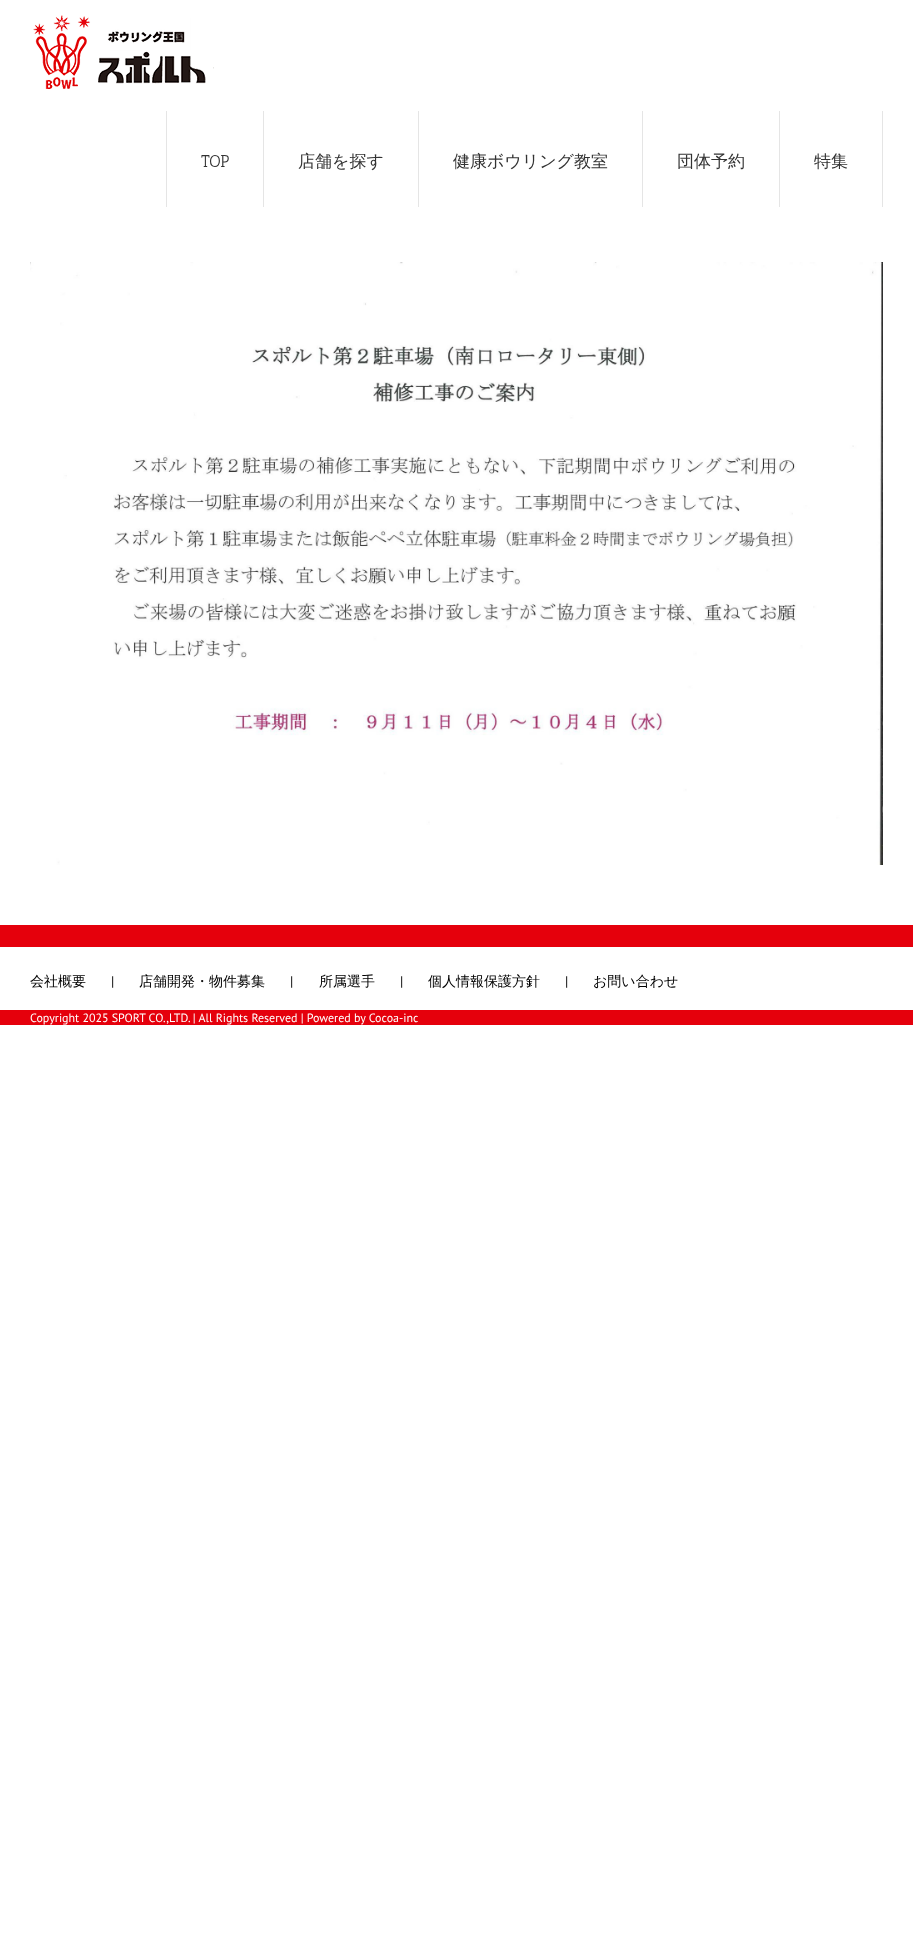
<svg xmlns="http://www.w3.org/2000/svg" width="913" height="1956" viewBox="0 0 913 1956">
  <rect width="100%" height="100%" fill="rgb(255,255,255)"/>
  <image x="33" y="15" width="181" height="74" href="pic1.png"/>
  <rect x="263" y="111" width="1" height="96" fill="rgb(229,229,229)"/>
  <rect x="166" y="111" width="1" height="96" fill="rgb(229,229,229)"/>
  <text x="201" y="167" font-family="Antic Slab" font-size="17" fill="rgb(51,51,51)">TOP</text>
  <rect x="418" y="111" width="1" height="96" fill="rgb(229,229,229)"/>
  <text x="298" y="167" font-family="WenQuanYi Zen Hei" font-size="17" font-weight="500" fill="rgb(51,51,51)">店舗を探す</text>
  <rect x="642" y="111" width="1" height="96" fill="rgb(229,229,229)"/>
  <text x="453" y="167" font-family="WenQuanYi Zen Hei" font-size="17" font-weight="500" fill="rgb(51,51,51)">健康ボウリング教室</text>
  <rect x="779" y="111" width="1" height="96" fill="rgb(229,229,229)"/>
  <text x="677" y="167" font-family="WenQuanYi Zen Hei" font-size="17" font-weight="500" fill="rgb(51,51,51)">団体予約</text>
  <rect x="882" y="111" width="1" height="96" fill="rgb(229,229,229)"/>
  <text x="814" y="167" font-family="WenQuanYi Zen Hei" font-size="17" font-weight="500" fill="rgb(51,51,51)">特集</text>
  <image x="30" y="262" width="853" height="603" href="pic2.png"/>
  <rect x="0" y="925" width="913" height="22" fill="rgb(229,0,12)"/>
  <text x="30" y="986" font-family="WenQuanYi Zen Hei" font-size="14" font-weight="500" fill="rgb(0,0,0)">会社概要</text>
  <text x="111" y="986" font-family="PT Sans" font-size="14" fill="rgb(0,0,0)">|</text>
  <text x="139" y="986" font-family="WenQuanYi Zen Hei" font-size="14" font-weight="500" fill="rgb(0,0,0)">店舗開発・物件募集</text>
  <text x="290" y="986" font-family="PT Sans" font-size="14" fill="rgb(0,0,0)">|</text>
  <text x="319" y="986" font-family="WenQuanYi Zen Hei" font-size="14" font-weight="500" fill="rgb(0,0,0)">所属選手</text>
  <text x="400" y="986" font-family="PT Sans" font-size="14" fill="rgb(0,0,0)">|</text>
  <text x="428" y="986" font-family="WenQuanYi Zen Hei" font-size="14" font-weight="500" fill="rgb(0,0,0)">個人情報保護方針</text>
  <text x="565" y="986" font-family="PT Sans" font-size="14" fill="rgb(0,0,0)">|</text>
  <text x="593" y="986" font-family="WenQuanYi Zen Hei" font-size="14" font-weight="500" fill="rgb(0,0,0)">お問い合わせ</text>
  <rect x="0" y="1010" width="913" height="15" fill="rgb(229,0,12)"/>
  <text x="30" y="1022" font-family="PT Sans" font-size="12" fill="rgb(255,255,255)">Copyright 2025 SPORT CO.,LTD. | All Rights Reserved | Powered by Cocoa-inc</text>
</svg>
